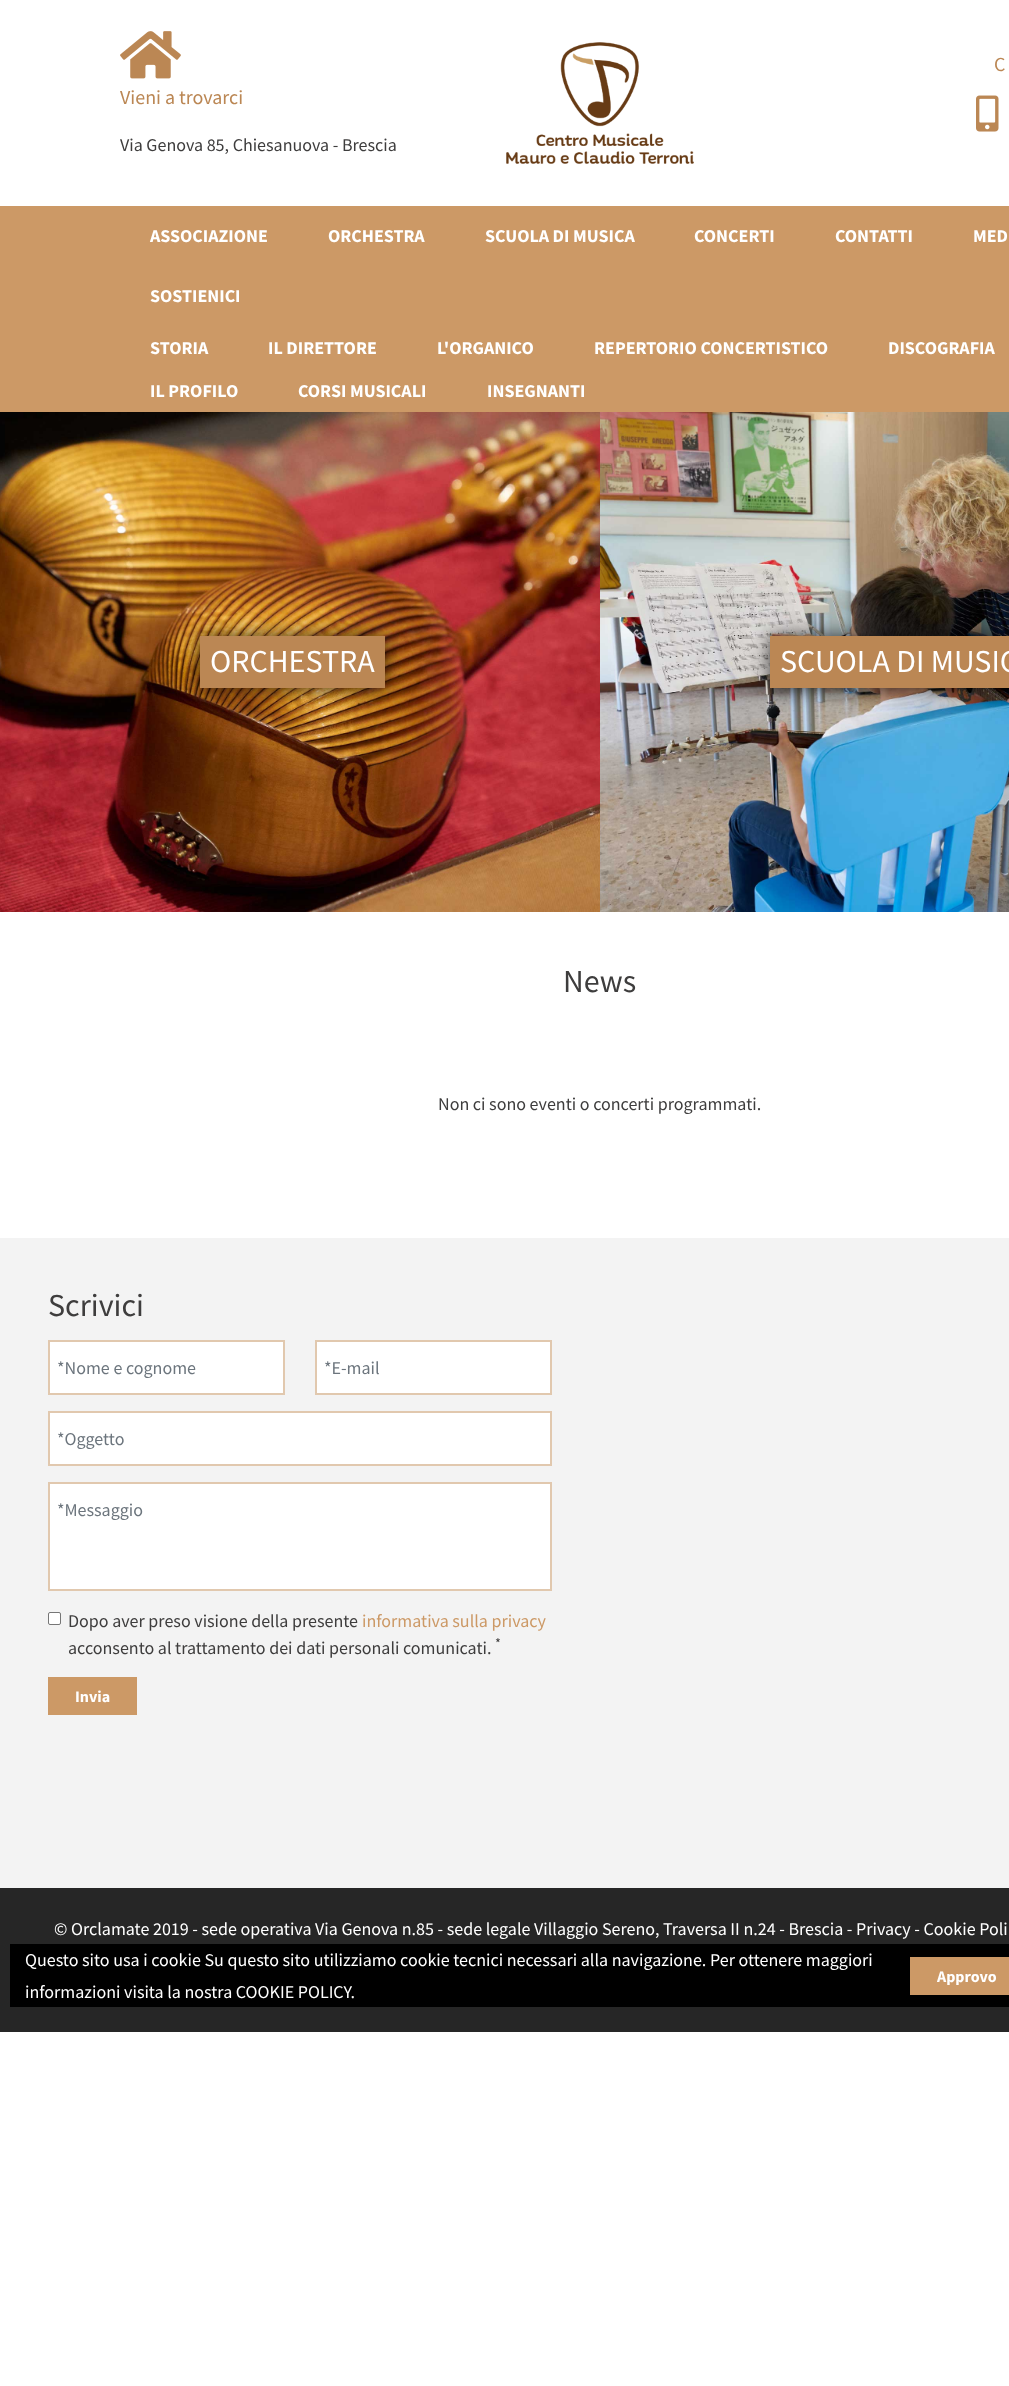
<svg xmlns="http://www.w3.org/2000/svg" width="1009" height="2386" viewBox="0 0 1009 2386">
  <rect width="100%" height="100%" fill="rgb(255,255,255)"/>
  <image x="506" y="42" width="188" height="122" href="pic1.png"/>
  <text x="994" y="71" font-family="Source Sans Pro" font-size="20" fill="rgb(187,135,84)">C</text>
  <image x="976" y="95" width="23" height="37" href="pic2.png"/>
  <image x="120" y="31" width="61" height="48" href="pic3.png"/>
  <text x="120" y="104" font-family="Source Sans Pro" font-size="20" fill="rgb(187,135,84)">Vieni a trovarci</text>
  <text x="120" y="151" font-family="Source Sans Pro" font-size="18" fill="rgb(62,61,61)">Via Genova 85, Chiesanuova - Brescia</text>
  <rect x="0" y="206" width="1009" height="206" fill="rgb(204,153,102)"/>
  <g font-family="Source Sans Pro" font-size="18" font-weight="bold" fill="rgb(255,255,255)">
    <text x="150" y="242">ASSOCIAZIONE</text>
    <text x="328" y="242">ORCHESTRA</text>
    <text x="485" y="242">SCUOLA DI MUSICA</text>
    <text x="694" y="242">CONCERTI</text>
    <text x="835" y="242">CONTATTI</text>
    <text x="973" y="242">MED</text>
    <text x="150" y="302">SOSTIENICI</text>
    <text x="150" y="354">STORIA</text>
    <text x="268" y="354">IL DIRETTORE</text>
    <text x="437" y="354">L'ORGANICO</text>
    <text x="594" y="354">REPERTORIO CONCERTISTICO</text>
    <text x="888" y="354">DISCOGRAFIA</text>
    <text x="150" y="397">IL PROFILO</text>
    <text x="298" y="397">CORSI MUSICALI</text>
    <text x="487" y="397">INSEGNANTI</text>
  </g>
  <image x="0" y="412" width="600" height="500" href="pic4.png"/>
  <rect x="200" y="636" width="185" height="52" fill="rgba(0,0,0,0.75)" filter="blur(10px)"/>
  <rect x="200" y="636" width="185" height="52" fill="rgb(187,135,84)"/>
  <text x="210" y="672" font-family="Source Sans Pro" font-size="32" fill="rgb(255,255,255)">ORCHESTRA</text>
  <image x="600" y="412" width="409" height="500" href="pic5.png"/>
  <rect x="770" y="636" width="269" height="52" fill="rgba(0,0,0,0.75)" filter="blur(10px)"/>
  <rect x="770" y="636" width="239" height="52" fill="rgb(187,135,84)"/>
  <text x="780" y="672" font-family="Source Sans Pro" font-size="32" fill="rgb(255,255,255)">SCUOLA DI MUSIC</text>
  <text x="563" y="992" font-family="Source Sans Pro" font-size="32" fill="rgb(62,61,61)">News</text>
  <text x="438" y="1110" font-family="Source Sans Pro" font-size="18" fill="rgb(62,61,61)">Non ci sono eventi o concerti programmati.</text>
  <rect x="0" y="1238" width="1009" height="650" fill="rgb(243,243,243)"/>
  <text x="48" y="1316" font-family="Source Sans Pro" font-size="32" fill="rgb(62,61,61)">Scrivici</text>
  <rect x="49" y="1341" width="235" height="53" fill="rgb(255,255,255)" stroke="rgb(225,200,174)" stroke-width="2"/>
  <text x="57" y="1374" font-family="Source Sans Pro" font-size="18" fill="rgb(108,117,125)">*Nome e cognome</text>
  <rect x="316" y="1341" width="235" height="53" fill="rgb(255,255,255)" stroke="rgb(225,200,174)" stroke-width="2"/>
  <text x="324" y="1374" font-family="Source Sans Pro" font-size="18" fill="rgb(108,117,125)">*E-mail</text>
  <rect x="49" y="1412" width="502" height="53" fill="rgb(255,255,255)" stroke="rgb(225,200,174)" stroke-width="2"/>
  <text x="57" y="1445" font-family="Source Sans Pro" font-size="18" fill="rgb(108,117,125)">*Oggetto</text>
  <rect x="49" y="1483" width="502" height="107" fill="rgb(255,255,255)" stroke="rgb(225,200,174)" stroke-width="2"/>
  <text x="57" y="1516" font-family="Source Sans Pro" font-size="18" fill="rgb(108,117,125)">*Messaggio</text>
  <rect x="48.5" y="1612.5" width="12" height="12" rx="1.5" fill="rgb(255,255,255)" stroke="rgb(118,118,118)"/>
  <text x="68" y="1627" font-family="Source Sans Pro" font-size="18" fill="rgb(62,61,61)">Dopo aver preso visione della presente</text>
  <text x="362" y="1627" font-family="Source Sans Pro" font-size="18" fill="rgb(204,153,102)">informativa sulla privacy</text>
  <text x="495" y="1648" font-family="Source Sans Pro" font-size="14" fill="rgb(62,61,61)">*</text>
  <text x="68" y="1654" font-family="Source Sans Pro" font-size="18" fill="rgb(62,61,61)">acconsento al trattamento dei dati personali comunicati.</text>
  <rect x="48" y="1677" width="89" height="38" fill="rgb(204,153,102)"/>
  <text x="75" y="1702" font-family="Source Sans Pro" font-size="16" font-weight="bold" fill="rgb(255,255,255)">Invia</text>
  <rect x="0" y="1888" width="1009" height="144" fill="rgb(38,38,38)"/>
  <text x="54" y="1935" font-family="Source Sans Pro" font-size="18" fill="rgb(255,255,255)">© Orclamate 2019 - sede operativa Via Genova n.85 - sede legale Villaggio Sereno, Traversa II n.24 - Brescia - Privacy - Cookie Poli</text>
  <rect x="10" y="1944" width="999" height="63" fill="rgb(0,0,0)"/>
  <g font-family="Source Sans Pro" font-size="18" fill="rgb(255,255,255)">
    <text>
      <tspan x="25" y="1966">Questo sito usa i cookie Su questo sito utilizziamo cookie tecnici necessari alla navigazione. Per ottenere maggiori</tspan>
      <tspan x="25" y="1998">informazioni visita la nostra COOKIE POLICY.</tspan>
    </text>
  </g>
  <rect x="910" y="1957" width="99" height="38" fill="rgb(204,153,102)"/>
  <text x="937" y="1982" font-family="Source Sans Pro" font-size="16" font-weight="bold" fill="rgb(255,255,255)">Approvo</text>
</svg>
